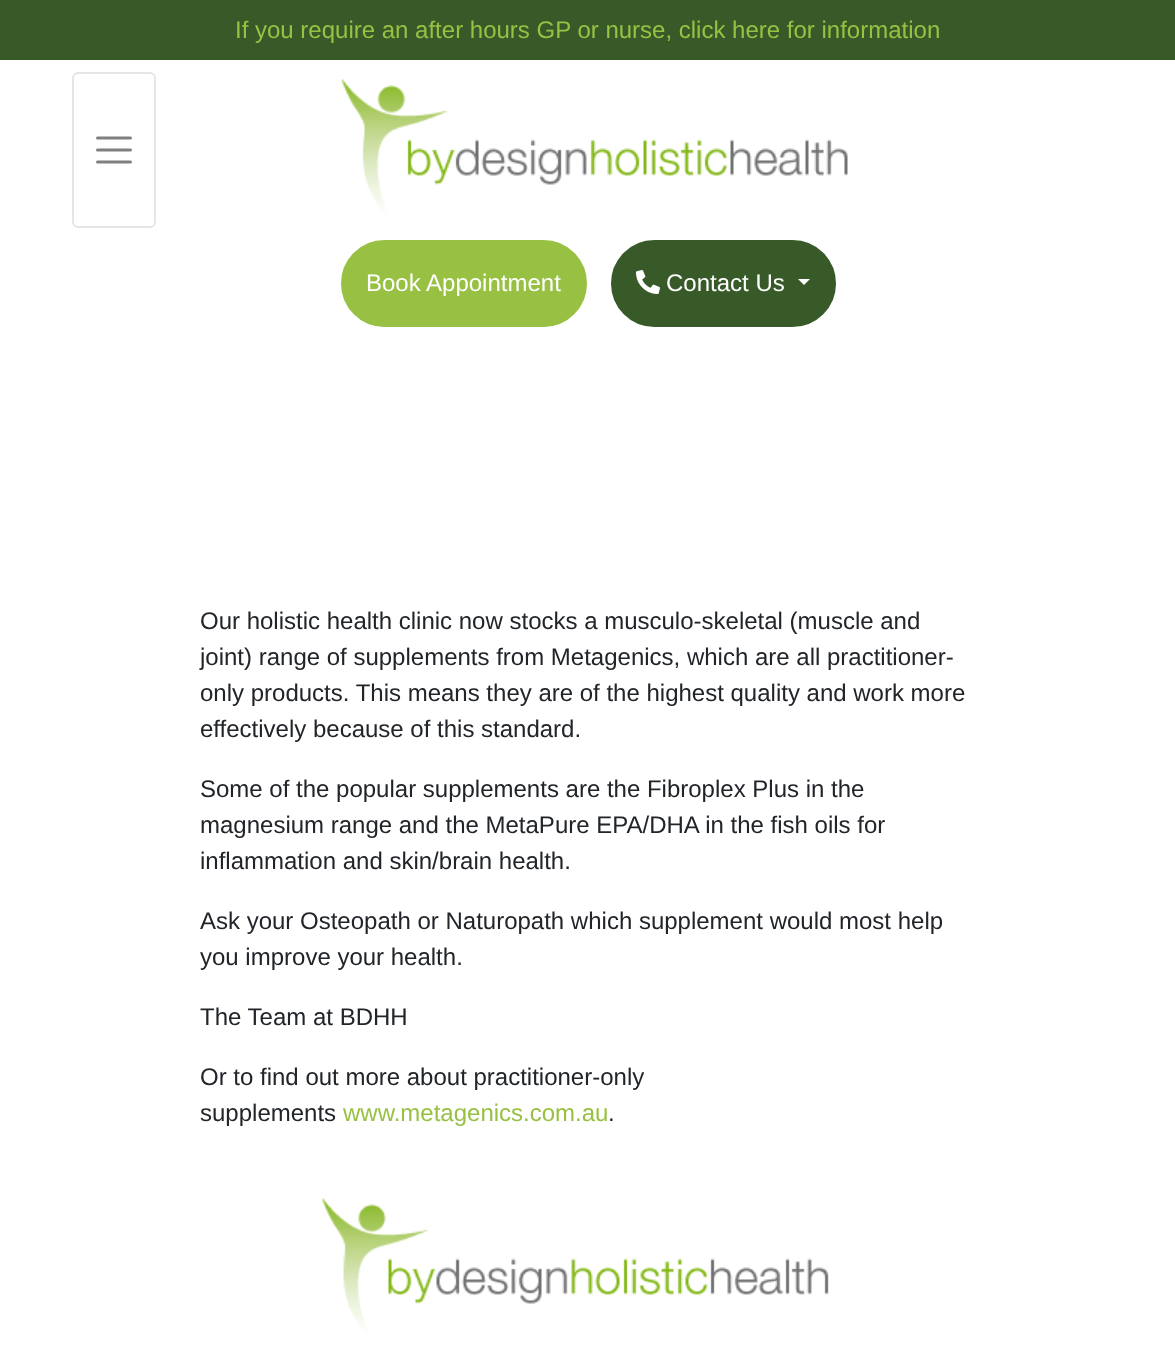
<svg xmlns="http://www.w3.org/2000/svg" width="1175" height="1351" viewBox="0 0 1175 1351">
  <rect width="100%" height="100%" fill="rgb(255,255,255)"/>
  <rect x="0" y="0" width="1175" height="60" fill="rgb(56,90,41)"/>
  <text x="235" y="38" font-family="Liberation Sans" font-size="24" fill="rgb(152,193,68)">If you require an after hours GP or nurse, click here for information</text>
  <rect x="73" y="73" width="82" height="154" rx="5" fill="none" stroke="rgb(230,230,230)" stroke-width="2"/>
  <path d="M97.5 138H130.5M97.5 150H130.5M97.5 162H130.5" fill="none" stroke="rgb(128,128,128)" stroke-width="3" stroke-linecap="round"/>
  <image x="341" y="79" width="507" height="135" href="pic1.png"/>
  <rect x="342" y="241" width="244" height="85" rx="42.5" fill="rgb(152,193,68)" stroke="rgb(152,193,68)" stroke-width="2"/>
  <text x="366" y="291" font-family="Liberation Sans" font-size="24" fill="rgb(255,255,255)">Book Appointment</text>
  <rect x="612" y="241" width="223" height="85" rx="42.5" fill="rgb(56,90,41)" stroke="rgb(56,90,41)" stroke-width="2"/>
  <image x="636" y="270" width="24" height="24" href="pic2.png"/>
  <text x="666" y="291" font-family="Liberation Sans" font-size="24" fill="rgb(255,255,255)">Contact Us</text>
  <path d="M798 279H810L804 285Z" fill="rgb(255,255,255)"/>
  <g font-family="Liberation Sans" font-size="24" fill="rgb(33,37,41)">
    <text>
      <tspan x="200" y="629">Our holistic health clinic now stocks a musculo-skeletal (muscle and</tspan>
      <tspan x="200" y="665">joint) range of supplements from Metagenics, which are all practitioner-</tspan>
      <tspan x="200" y="701">only products. This means they are of the highest quality and work more</tspan>
      <tspan x="200" y="737">effectively because of this standard.</tspan>
    </text>
    <text>
      <tspan x="200" y="797">Some of the popular supplements are the Fibroplex Plus in the</tspan>
      <tspan x="200" y="833">magnesium range and the MetaPure EPA/DHA in the fish oils for</tspan>
      <tspan x="200" y="869">inflammation and skin/brain health.</tspan>
    </text>
    <text>
      <tspan x="200" y="929">Ask your Osteopath or Naturopath which supplement would most help</tspan>
      <tspan x="200" y="965">you improve your health.</tspan>
    </text>
    <text x="200" y="1025">The Team at BDHH</text>
    <text>
      <tspan x="200" y="1085">Or to find out more about practitioner-only</tspan>
      <tspan x="200" y="1121">supplements</tspan>
    </text>
  </g>
  <text x="343" y="1121" font-family="Liberation Sans" font-size="24" fill="rgb(152,193,68)">www.metagenics.com.au</text>
  <text x="608" y="1121" font-family="Liberation Sans" font-size="24" fill="rgb(33,37,41)">.</text>
  <image x="322" y="1198" width="507" height="136" href="pic3.png"/>
</svg>
